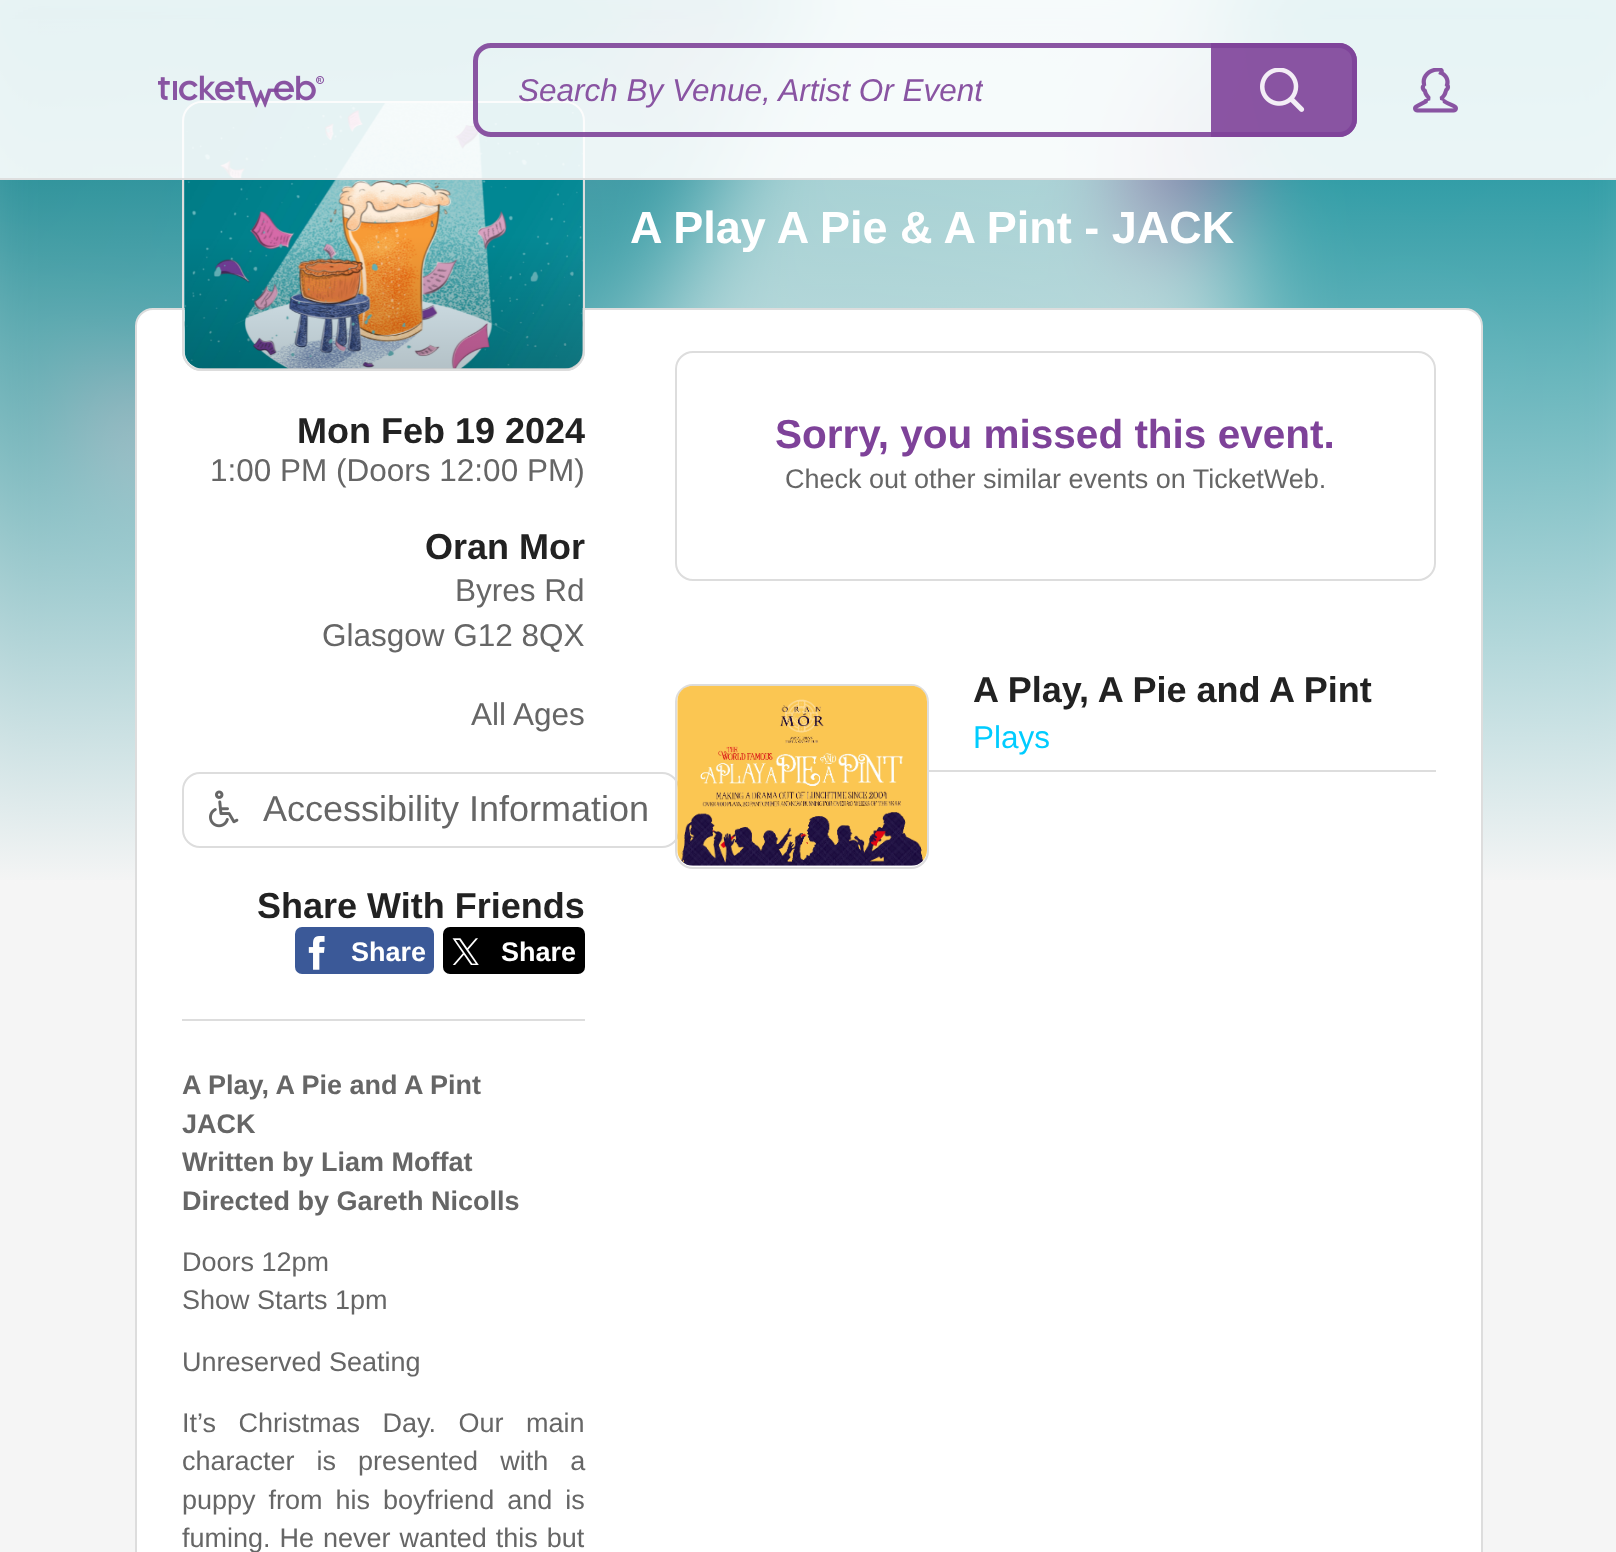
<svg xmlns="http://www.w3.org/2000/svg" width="1616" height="1552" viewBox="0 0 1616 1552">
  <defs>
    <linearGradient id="g1" gradientUnits="userSpaceOnUse" x1="809" y1="0" x2="809" y2="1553"><stop offset="0" stop-color="rgb(245,245,245)" stop-opacity="0"/><stop offset="0.57" stop-color="rgb(245,245,245)"/></linearGradient>
    <linearGradient id="g2" gradientUnits="userSpaceOnUse" x1="384" y1="103" x2="384" y2="369"><stop offset="0.5" stop-color="rgb(0,0,0)" stop-opacity="0"/><stop offset="1" stop-color="rgb(0,0,0)" stop-opacity="0.2"/></linearGradient>
    <clipPath id="clip1"><rect x="495" y="68" width="488" height="45"/></clipPath>
    <clipPath id="clip2"><rect x="630" y="149" width="851" height="103"/></clipPath>
  </defs>
  <rect width="100%" height="100%" fill="rgb(255,255,255)"/>
  <image x="0" y="0" width="1616" height="880" href="pic1.png"/>
  <rect x="0" y="19" width="1616" height="1533" fill="url(#g1)"/>
  <rect x="136" y="309" width="1346" height="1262" rx="17" fill="rgb(255,255,255)" stroke="rgb(221,221,221)" stroke-width="2"/>
  <rect x="183" y="312" width="401" height="58" rx="19" fill="none" stroke="rgb(221,221,221)" stroke-width="2"/>
  <rect x="183" y="102" width="401" height="268" rx="19" fill="none" stroke="rgb(221,221,221)" stroke-width="2"/>
  <image x="184" y="103" width="399" height="266" href="pic5.png"/>
  <rect x="185" y="104" width="398" height="265" rx="18" fill="url(#g2)"/>
  <rect x="0" y="0" width="1616" height="180" fill="rgba(255,255,255,0.9)"/>
  <rect x="0" y="178" width="1616" height="2" fill="rgba(221,221,221,0.9)"/>
  <image x="158" y="75" width="166" height="33" href="pic2.png"/>
  <rect x="475.5" y="45.5" width="879" height="89" rx="15.5" fill="none" stroke="rgba(126,66,153,0.9)" stroke-width="5"/>
  <g clip-path="url(#clip1)">
    <text x="518" y="101" font-family="Liberation Sans" font-size="31.5" font-style="italic" fill="rgb(137,84,162)">Search By Venue, Artist Or Event</text>
  </g>
  <path d="M1211 43H1339C1349 43 1357 51 1357 61V119C1357 129 1349 137 1339 137H1211Z" fill="rgba(126,66,153,0.9)"/>
  <image x="1260" y="68" width="45" height="44" href="pic3.png"/>
  <image x="1413" y="68" width="45" height="45" href="pic4.png"/>
  <text x="297" y="443" font-family="Liberation Sans" font-size="36" font-weight="bold" fill="rgb(34,34,34)">Mon Feb 19 2024</text>
  <text x="210" y="481" font-family="Liberation Sans" font-size="31.5" fill="rgb(102,102,102)">1:00 PM (Doors 12:00 PM)</text>
  <text x="425" y="559" font-family="Liberation Sans" font-size="36" font-weight="bold" fill="rgb(34,34,34)">Oran Mor</text>
  <g font-family="Liberation Sans" font-size="31.5" fill="rgb(102,102,102)">
    <text x="455" y="601">Byres Rd</text>
    <text x="322" y="646">Glasgow G12 8QX</text>
    <text x="471" y="725">All Ages</text>
  </g>
  <rect x="183" y="773" width="496" height="74" rx="17" fill="none" stroke="rgb(221,221,221)" stroke-width="2"/>
  <image x="209" y="790" width="30" height="38" href="pic6.png"/>
  <text x="263" y="821" font-family="Liberation Sans" font-size="36" fill="rgb(102,102,102)">Accessibility Information</text>
  <text x="257" y="918" font-family="Liberation Sans" font-size="36" font-weight="bold" fill="rgb(34,34,34)">Share With Friends</text>
  <rect x="295" y="927" width="139" height="47" rx="7" fill="rgb(59,89,152)"/>
  <image x="308" y="936" width="17" height="34" href="pic7.png"/>
  <text x="351" y="961" font-family="Liberation Sans" font-size="27" font-weight="bold" fill="rgb(255,255,255)">Share</text>
  <rect x="443" y="927" width="142" height="47" rx="7" fill="rgb(0,0,0)"/>
  <image x="452" y="938" width="27" height="27" href="pic8.png"/>
  <text x="501" y="961" font-family="Liberation Sans" font-size="27" font-weight="bold" fill="rgb(255,255,255)">Share</text>
  <rect x="182" y="1019" width="403" height="2" fill="rgb(221,221,221)"/>
  <g font-family="Liberation Sans" font-size="27" font-weight="bold" fill="rgb(102,102,102)">
    <text>
      <tspan x="182" y="1094">A Play, A Pie and A Pint</tspan>
      <tspan x="182" y="1133">JACK</tspan>
      <tspan x="182" y="1171">Written by Liam Moffat</tspan>
      <tspan x="182" y="1210">Directed by Gareth Nicolls</tspan>
    </text>
  </g>
  <g font-family="Liberation Sans" font-size="27" fill="rgb(102,102,102)">
    <text>
      <tspan x="182" y="1271">Doors 12pm</tspan>
      <tspan x="182" y="1309">Show Starts 1pm</tspan>
    </text>
    <text x="182" y="1371">Unreserved Seating</text>
    <text>
      <tspan x="182" y="1432" word-spacing="15">It’s Christmas Day. Our main</tspan>
      <tspan x="182" y="1470" word-spacing="14.5">character is presented with a</tspan>
      <tspan x="182" y="1509" word-spacing="5.5">puppy from his boyfriend and is</tspan>
      <tspan x="182" y="1547" word-spacing="1.5">fuming. He never wanted this but</tspan>
    </text>
  </g>
  <g clip-path="url(#clip2)">
    <text x="630" y="243" font-family="Liberation Sans" font-size="45" font-weight="bold" fill="rgb(255,255,255)">A Play A Pie &amp; A Pint - JACK</text>
  </g>
  <rect x="676" y="352" width="759" height="228" rx="17" fill="none" stroke="rgb(221,221,221)" stroke-width="2"/>
  <text x="775" y="448" font-family="Liberation Sans" font-size="40.5" font-weight="bold" fill="rgb(126,66,153)">Sorry, you missed this event.</text>
  <text x="785" y="488" font-family="Liberation Sans" font-size="27" fill="rgb(102,102,102)">Check out other similar events on TicketWeb.</text>
  <rect x="676" y="685" width="252" height="183" rx="17" fill="none" stroke="rgb(221,221,221)" stroke-width="2"/>
  <image x="677" y="685" width="250" height="181" href="pic9.png"/>
  <rect x="929" y="770" width="507" height="2" fill="rgb(221,221,221)"/>
  <text x="973" y="702" font-family="Liberation Sans" font-size="36" font-weight="bold" fill="rgb(34,34,34)">A Play, A Pie and A Pint</text>
  <text x="973" y="748" font-family="Liberation Sans" font-size="31.5" fill="rgb(0,204,255)">Plays</text>
</svg>
